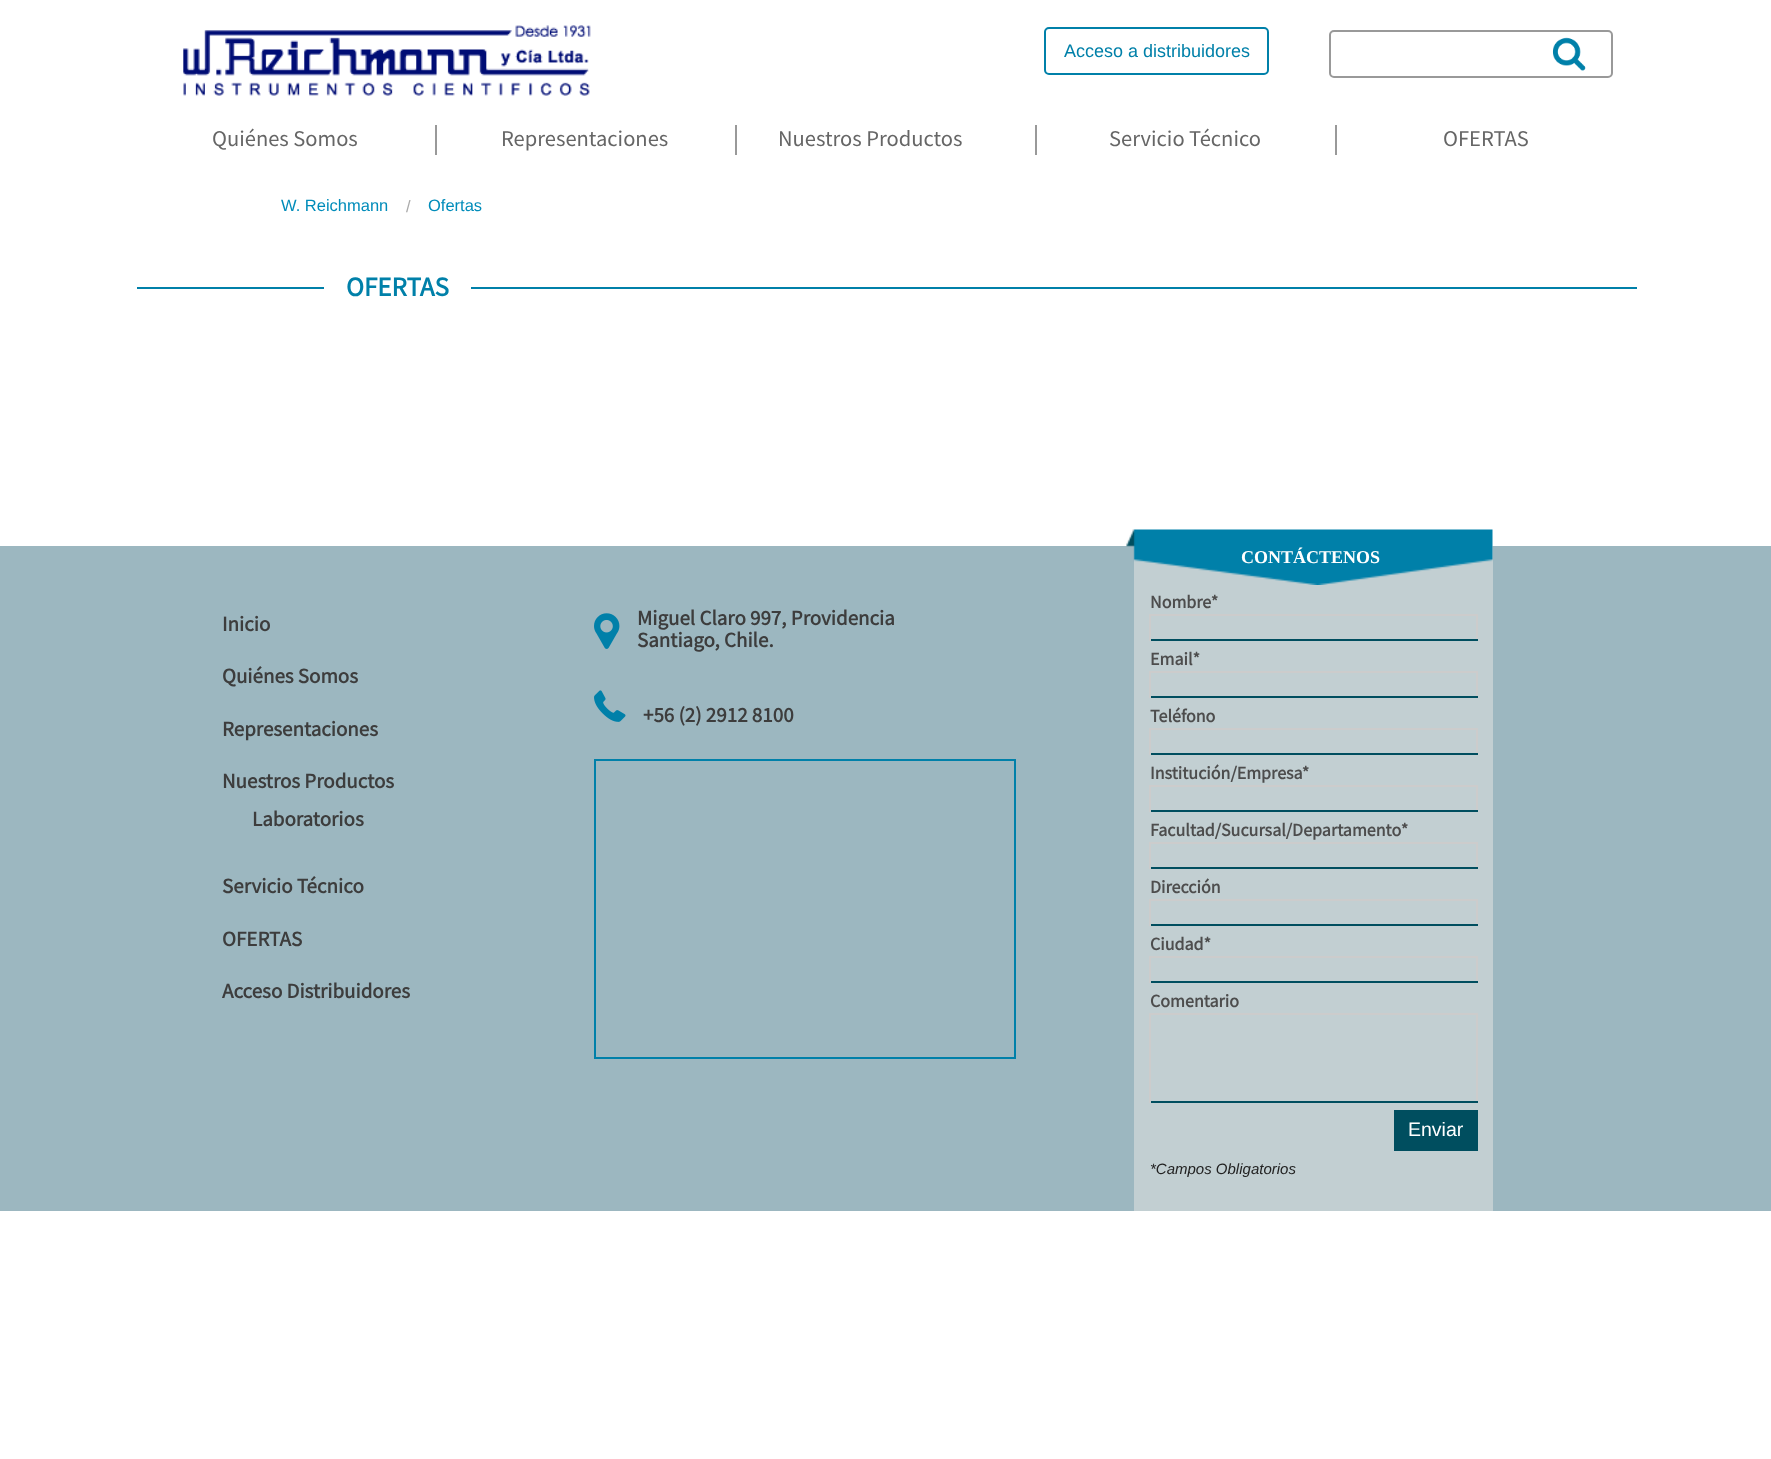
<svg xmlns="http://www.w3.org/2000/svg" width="1771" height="1459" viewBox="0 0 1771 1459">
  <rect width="100%" height="100%" fill="rgb(255,255,255)"/>
  <image x="183" y="25" width="408" height="71" href="pic1.png"/>
  <rect x="1045" y="28" width="223" height="46" rx="4" fill="none" stroke="rgb(0,128,169)" stroke-width="2"/>
  <text x="1064" y="57" font-family="Liberation Sans" font-size="18" fill="rgb(0,128,169)">Acceso a distribuidores</text>
  <rect x="1330" y="31" width="282" height="46" rx="4" fill="none" stroke="rgb(153,153,153)" stroke-width="2"/>
  <image x="1552" y="37" width="34" height="34" href="pic2.png"/>
  <rect x="435" y="125" width="2" height="30" fill="rgb(153,153,153)"/>
  <text x="212" y="146" font-family="Source Sans Pro" font-size="22.5" fill="rgb(102,102,102)">Quiénes Somos</text>
  <rect x="735" y="125" width="2" height="30" fill="rgb(153,153,153)"/>
  <text x="501" y="146" font-family="Source Sans Pro" font-size="22.5" fill="rgb(102,102,102)">Representaciones</text>
  <rect x="1035" y="125" width="2" height="30" fill="rgb(153,153,153)"/>
  <text x="778" y="146" font-family="Source Sans Pro" font-size="22.5" fill="rgb(102,102,102)">Nuestros Productos</text>
  <rect x="1335" y="125" width="2" height="30" fill="rgb(153,153,153)"/>
  <g font-family="Source Sans Pro" font-size="22.5" fill="rgb(102,102,102)">
    <text x="1109" y="146">Servicio Técnico</text>
    <text x="1443" y="146">OFERTAS</text>
  </g>
  <text x="281" y="211" font-family="Liberation Sans" font-size="16.5" fill="rgb(0,140,186)">W. Reichmann</text>
  <text x="406" y="212" font-family="Liberation Sans" font-size="16.5" fill="rgb(170,170,170)">/</text>
  <text x="428" y="211" font-family="Liberation Sans" font-size="16.5" fill="rgb(0,140,186)">Ofertas</text>
  <rect x="137" y="287" width="187" height="2" fill="rgb(0,128,169)"/>
  <text x="346" y="296" font-family="Source Sans Pro" font-size="27" font-weight="bold" fill="rgb(0,128,169)">OFERTAS</text>
  <rect x="471" y="287" width="1166" height="2" fill="rgb(0,128,169)"/>
  <rect x="0" y="546" width="1771" height="665" fill="rgb(156,183,192)"/>
  <g font-family="Source Sans Pro" font-size="21" font-weight="bold" fill="rgb(61,61,61)">
    <text x="222" y="631">Inicio</text>
    <text x="222" y="683">Quiénes Somos</text>
    <text x="222" y="736">Representaciones</text>
    <text x="222" y="788">Nuestros Productos</text>
    <text x="252" y="826">Laboratorios</text>
    <text x="222" y="893">Servicio Técnico</text>
    <text x="222" y="946">OFERTAS</text>
    <text x="222" y="998">Acceso Distribuidores</text>
  </g>
  <image x="594" y="613" width="26" height="36" href="pic3.png"/>
  <g font-family="Source Sans Pro" font-size="21" font-weight="bold" fill="rgb(61,61,61)">
    <text>
      <tspan x="637" y="625">Miguel Claro 997, Providencia</tspan>
      <tspan x="637" y="647">Santiago, Chile.</tspan>
    </text>
  </g>
  <image x="594" y="690" width="32" height="32" href="pic4.png"/>
  <text x="643" y="722" font-family="Source Sans Pro" font-size="21" font-weight="bold" fill="rgb(61,61,61)">+56 (2) 2912 8100</text>
  <rect x="595" y="760" width="420" height="298" fill="none" stroke="rgb(0,128,169)" stroke-width="2"/>
  <rect x="1134" y="546" width="359" height="665" fill="rgb(194,207,210)"/>
  <image x="1126" y="529" width="367" height="56" href="pic5.png"/>
  <text x="1241" y="563" font-family="Liberation Serif" font-size="18" font-weight="bold" fill="rgb(255,255,255)">CONTÁCTENOS</text>
  <text x="1150" y="608" font-family="Source Sans Pro" font-size="18" font-weight="bold" fill="rgb(77,77,77)">Nombre*</text>
  <rect x="1149" y="614" width="329" height="2" fill="rgb(204,204,204)"/>
  <rect x="1476" y="614" width="2" height="27" fill="rgb(204,204,204)"/>
  <rect x="1149" y="639" width="329" height="2" fill="rgb(0,78,95)"/>
  <rect x="1149" y="614" width="2" height="27" fill="rgb(204,204,204)"/>
  <text x="1150" y="665" font-family="Source Sans Pro" font-size="18" font-weight="bold" fill="rgb(77,77,77)">Email*</text>
  <rect x="1149" y="671" width="329" height="2" fill="rgb(204,204,204)"/>
  <rect x="1476" y="671" width="2" height="27" fill="rgb(204,204,204)"/>
  <rect x="1149" y="696" width="329" height="2" fill="rgb(0,78,95)"/>
  <rect x="1149" y="671" width="2" height="27" fill="rgb(204,204,204)"/>
  <text x="1150" y="722" font-family="Source Sans Pro" font-size="18" font-weight="bold" fill="rgb(77,77,77)">Teléfono</text>
  <rect x="1149" y="728" width="329" height="2" fill="rgb(204,204,204)"/>
  <rect x="1476" y="728" width="2" height="27" fill="rgb(204,204,204)"/>
  <rect x="1149" y="753" width="329" height="2" fill="rgb(0,78,95)"/>
  <rect x="1149" y="728" width="2" height="27" fill="rgb(204,204,204)"/>
  <text x="1150" y="779" font-family="Source Sans Pro" font-size="18" font-weight="bold" fill="rgb(77,77,77)">Institución/Empresa*</text>
  <rect x="1149" y="785" width="329" height="2" fill="rgb(204,204,204)"/>
  <rect x="1476" y="785" width="2" height="27" fill="rgb(204,204,204)"/>
  <rect x="1149" y="810" width="329" height="2" fill="rgb(0,78,95)"/>
  <rect x="1149" y="785" width="2" height="27" fill="rgb(204,204,204)"/>
  <text x="1150" y="836" font-family="Source Sans Pro" font-size="18" font-weight="bold" fill="rgb(77,77,77)">Facultad/Sucursal/Departamento*</text>
  <rect x="1149" y="842" width="329" height="2" fill="rgb(204,204,204)"/>
  <rect x="1476" y="842" width="2" height="27" fill="rgb(204,204,204)"/>
  <rect x="1149" y="867" width="329" height="2" fill="rgb(0,78,95)"/>
  <rect x="1149" y="842" width="2" height="27" fill="rgb(204,204,204)"/>
  <text x="1150" y="893" font-family="Source Sans Pro" font-size="18" font-weight="bold" fill="rgb(77,77,77)">Dirección</text>
  <rect x="1149" y="899" width="329" height="2" fill="rgb(204,204,204)"/>
  <rect x="1476" y="899" width="2" height="27" fill="rgb(204,204,204)"/>
  <rect x="1149" y="924" width="329" height="2" fill="rgb(0,78,95)"/>
  <rect x="1149" y="899" width="2" height="27" fill="rgb(204,204,204)"/>
  <text x="1150" y="950" font-family="Source Sans Pro" font-size="18" font-weight="bold" fill="rgb(77,77,77)">Ciudad*</text>
  <rect x="1149" y="956" width="329" height="2" fill="rgb(204,204,204)"/>
  <rect x="1476" y="956" width="2" height="27" fill="rgb(204,204,204)"/>
  <rect x="1149" y="981" width="329" height="2" fill="rgb(0,78,95)"/>
  <rect x="1149" y="956" width="2" height="27" fill="rgb(204,204,204)"/>
  <text x="1150" y="1007" font-family="Source Sans Pro" font-size="18" font-weight="bold" fill="rgb(77,77,77)">Comentario</text>
  <rect x="1149" y="1013" width="329" height="2" fill="rgb(204,204,204)"/>
  <rect x="1476" y="1013" width="2" height="90" fill="rgb(204,204,204)"/>
  <rect x="1149" y="1101" width="329" height="2" fill="rgb(0,78,95)"/>
  <rect x="1149" y="1013" width="2" height="90" fill="rgb(204,204,204)"/>
  <rect x="1394" y="1110" width="84" height="41" fill="rgb(0,78,95)"/>
  <text x="1408" y="1136" font-family="Liberation Sans" font-size="19.5" fill="rgb(255,255,255)">Enviar</text>
  <text x="1150" y="1174" font-family="Liberation Sans" font-size="15" font-style="italic" fill="rgb(34,34,34)">*Campos Obligatorios</text>
</svg>
